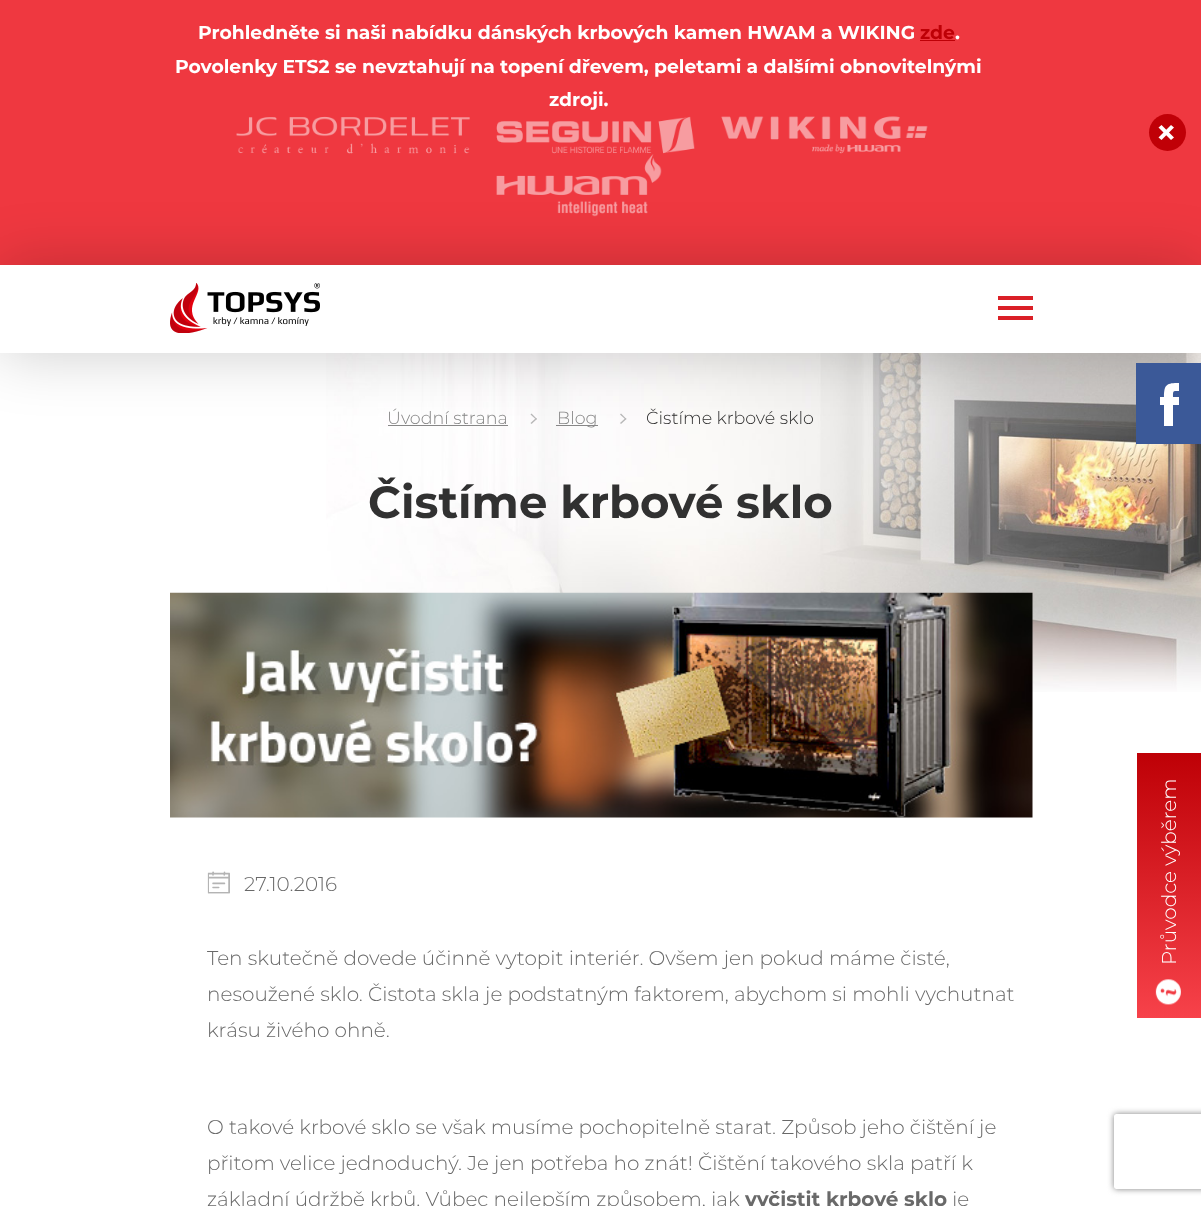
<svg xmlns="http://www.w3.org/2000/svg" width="1201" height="1206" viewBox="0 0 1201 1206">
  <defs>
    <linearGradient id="g1" gradientUnits="userSpaceOnUse" x1="1178" y1="1018" x2="1178" y2="753"><stop offset="0" stop-color="rgb(247,66,74)"/><stop offset="1" stop-color="rgb(190,0,6)"/></linearGradient>
    <clipPath id="clip1"><path d="M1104 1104H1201V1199H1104ZM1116.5 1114H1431.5C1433 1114 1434 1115 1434 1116.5V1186.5C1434 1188 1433 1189 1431.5 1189H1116.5C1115 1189 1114 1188 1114 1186.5V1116.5C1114 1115 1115 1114 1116.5 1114Z" clip-rule="evenodd"/></clipPath>
  </defs>
  <rect width="100%" height="100%" fill="rgb(255,255,255)"/>
  <rect x="0" y="0" width="1201" height="265" fill="rgb(239,56,64)"/>
  <text x="198" y="39" font-family="Montserrat" font-size="18.75" font-weight="bold" fill="rgb(255,255,255)">Prohledněte si naši nabídku dánských krbových kamen HWAM a WIKING</text>
  <text x="920" y="39" font-family="Montserrat" font-size="18.75" font-weight="bold" fill="rgb(190,0,6)">zde</text>
  <text x="955" y="39" font-family="Montserrat" font-size="18.75" font-weight="bold" fill="rgb(255,255,255)">.</text>
  <rect x="920" y="40" width="35" height="1" fill="rgb(190,0,6)"/>
  <g font-family="Montserrat" font-size="18.75" font-weight="bold" fill="rgb(255,255,255)">
    <text x="175" y="73">Povolenky ETS2 se nevztahují na topení dřevem, peletami a dalšími obnovitelnými</text>
    <text x="549" y="106">zdroji.</text>
  </g>
  <image x="236" y="116" width="234" height="38" href="pic1.png"/>
  <image x="496" y="116" width="199" height="38" href="pic2.png"/>
  <image x="721" y="116" width="207" height="38" href="pic3.png"/>
  <image x="496" y="154" width="166" height="63" href="pic4.png"/>
  <circle cx="1167.5" cy="132.5" r="18.5" fill="rgb(192,0,7)"/>
  <path d="M1158.5 127.5L1161.5 125L1174 137.5L1171 140Z" fill="rgb(255,255,255)"/>
  <path d="M1171 125L1174 127.5L1161.5 140L1158.5 137.5Z" fill="rgb(255,255,255)"/>
  <image x="326" y="353" width="875" height="339" href="pic6.png"/>
  <rect x="388" y="425" width="120" height="1" fill="rgb(135,135,135)"/>
  <path d="M530.5 414.5L531.5 413.5L537 419L536 419.5Z" fill="rgb(183,183,183)"/>
  <path d="M530.5 423L536 418L537 419L531.5 424Z" fill="rgb(183,183,183)"/>
  <rect x="556" y="425" width="42" height="1" fill="rgb(135,135,135)"/>
  <path d="M620 414.5L621 413.5L626.5 419L625.5 419.5Z" fill="rgb(183,183,183)"/>
  <path d="M620 423L625.5 418L626.5 419L621 424Z" fill="rgb(183,183,183)"/>
  <rect x="0" y="265" width="1201" height="88" fill="rgba(0,0,0,0.2)" filter="blur(30.5px)"/>
  <rect x="0" y="265" width="1201" height="88" fill="rgb(255,255,255)"/>
  <image x="170" y="283" width="150" height="50" href="pic5.png"/>
  <rect x="998" y="296" width="35" height="4" fill="rgb(218,32,39)"/>
  <rect x="998" y="306" width="35" height="4" fill="rgb(218,32,39)"/>
  <rect x="998" y="316" width="35" height="4" fill="rgb(218,32,39)"/>
  <g font-family="Montserrat" font-size="17.5" font-weight="300" fill="rgb(135,135,135)">
    <text x="387" y="424">Úvodní strana</text>
    <text x="557" y="424">Blog</text>
  </g>
  <text x="646" y="424" font-family="Montserrat" font-size="17.5" font-weight="300" fill="rgb(49,49,49)">Čistíme krbové sklo</text>
  <text x="368" y="518" font-family="Montserrat" font-size="45" font-weight="bold" fill="rgb(49,49,49)">Čistíme krbové sklo</text>
  <image x="170" y="592" width="863" height="226" href="pic7.png"/>
  <image x="207" y="871" width="23" height="23" href="pic8.png"/>
  <g font-family="Montserrat" font-size="20" font-weight="300" fill="rgb(105,105,105)">
    <text x="244" y="891">27.10.2016</text>
    <text>
      <tspan x="207" y="965">Ten skutečně dovede účinně vytopit interiér. Ovšem jen pokud máme čisté,</tspan>
      <tspan x="207" y="1001">nesoužené sklo. Čistota skla je podstatným faktorem, abychom si mohli vychutnat</tspan>
      <tspan x="207" y="1037">krásu živého ohně.</tspan>
    </text>
    <text>
      <tspan x="207" y="1134">O takové krbové sklo se však musíme pochopitelně starat. Způsob jeho čištění je</tspan>
      <tspan x="207" y="1170">přitom velice jednoduchý. Je jen potřeba ho znát! Čištění takového skla patří k</tspan>
      <tspan x="207" y="1206">základní údržbě krbů. Vůbec nejlepším způsobem, jak</tspan>
    </text>
  </g>
  <text x="745" y="1206" font-family="Montserrat" font-size="20" font-weight="bold" fill="rgb(105,105,105)">vyčistit krbové sklo</text>
  <text x="952" y="1206" font-family="Montserrat" font-size="20" font-weight="300" fill="rgb(105,105,105)">je</text>
  <rect x="1136" y="363" width="65" height="81" fill="rgb(59,89,152)"/>
  <path d="M1179 397H1173C1173 390 1173 391 1179 391V383C1167 383 1164 384 1164 397H1160V405H1164V426H1173V405H1179Z" fill="rgb(255,255,255)"/>
  <rect x="1137" y="753" width="64" height="265" fill="url(#g1)"/>
  <text x="1176" y="965" transform="rotate(-90 1176 965)" font-family="Montserrat" font-size="20" font-weight="300" fill="rgb(255,255,255)">Průvodce výběrem</text>
  <image x="1155" y="979" width="26" height="26" href="pic9.png"/>
  <g clip-path="url(#clip1)">
    <rect x="1114" y="1114" width="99" height="75" rx="2.5" fill="rgb(128,128,128)" filter="blur(3px)"/>
  </g>
</svg>
